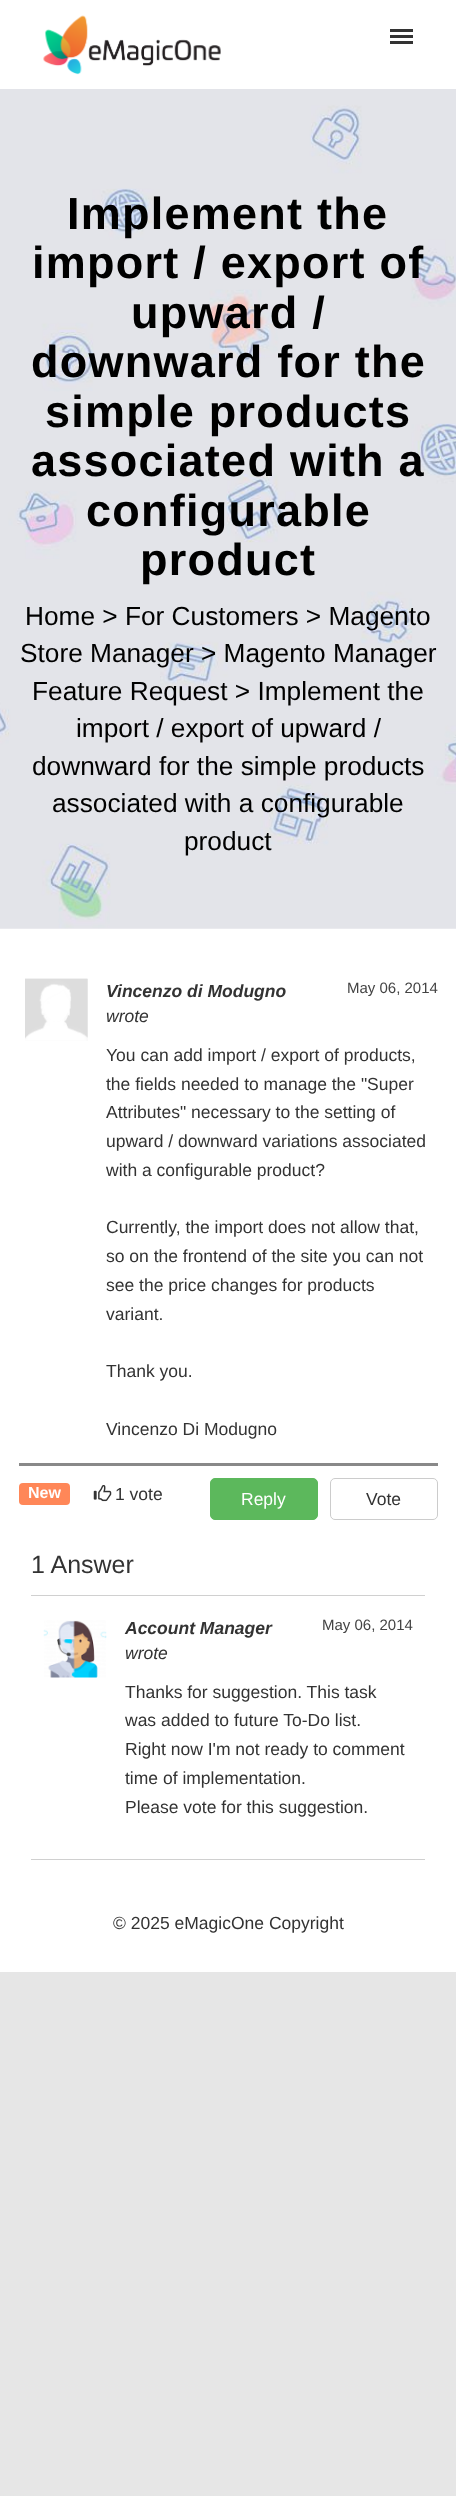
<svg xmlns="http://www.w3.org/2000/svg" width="456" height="2496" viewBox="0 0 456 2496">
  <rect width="100%" height="100%" fill="rgb(230,230,230)"/>
  <rect x="0" y="928" width="456" height="1044" fill="rgb(255,255,255)"/>
  <rect x="0" y="0" width="456" height="89" fill="rgb(255,255,255)"/>
  <image x="43" y="15" width="178" height="60" href="pic1.png"/>
  <rect x="390" y="35" width="23" height="3" fill="rgb(51,51,51)"/>
  <rect x="390" y="29" width="23" height="3" fill="rgb(51,51,51)"/>
  <rect x="390" y="41" width="23" height="3" fill="rgb(51,51,51)"/>
  <image x="0" y="89" width="456" height="840" href="pic2.png"/>
  <g font-family="Liberation Sans" font-size="45" font-weight="bold" letter-spacing="1.25" fill="rgb(0,0,0)">
    <text x="67" y="229">Implement the</text>
    <text x="32" y="278">import / export of</text>
    <text x="131" y="328">upward /</text>
    <text x="31" y="377">downward for the</text>
    <text x="45" y="427">simple products</text>
    <text x="31" y="476">associated with a</text>
    <text x="86" y="526">configurable</text>
    <text x="140" y="575">product</text>
  </g>
  <g font-family="Liberation Sans" font-size="26.25" fill="rgb(0,0,0)">
    <text x="25" y="625">Home &gt; For Customers &gt; Magento</text>
    <text x="20" y="662">Store Manager &gt; Magento Manager</text>
    <text x="32" y="700">Feature Request &gt; Implement the</text>
    <text x="76" y="737">import / export of upward /</text>
    <text x="32" y="775">downward for the simple products</text>
    <text x="52" y="812">associated with a configurable</text>
    <text x="184" y="850">product</text>
  </g>
  <rect x="19" y="1463" width="419" height="3" fill="rgb(137,137,137)"/>
  <image x="25" y="978" width="63" height="63" href="pic3.png"/>
  <image x="25" y="978" width="63" height="63" href="pic4.png"/>
  <text x="106" y="997" font-family="Liberation Sans" font-size="17.5" font-weight="bold" font-style="italic" fill="rgb(51,51,51)">Vincenzo di Modugno</text>
  <text x="106" y="1022" font-family="Liberation Sans" font-size="17.5" font-style="italic" fill="rgb(51,51,51)">wrote</text>
  <text x="347" y="993" font-family="Liberation Sans" font-size="15" fill="rgb(67,67,67)">May 06, 2014</text>
  <g font-family="Liberation Sans" font-size="17.5" fill="rgb(51,51,51)">
    <text>
      <tspan x="106" y="1061">You can add import / export of products,</tspan>
      <tspan x="106" y="1090">the fields needed to manage the "Super</tspan>
      <tspan x="106" y="1118">Attributes" necessary to the setting of</tspan>
      <tspan x="106" y="1147">upward / downward variations associated</tspan>
      <tspan x="106" y="1176">with a configurable product?</tspan>
    </text>
    <text>
      <tspan x="106" y="1233">Currently, the import does not allow that,</tspan>
      <tspan x="106" y="1262">so on the frontend of the site you can not</tspan>
      <tspan x="106" y="1291">see the price changes for products</tspan>
      <tspan x="106" y="1320">variant.</tspan>
    </text>
    <text x="106" y="1377">Thank you.</text>
    <text x="106" y="1435">Vincenzo Di Modugno</text>
  </g>
  <rect x="19" y="1483" width="51" height="22" rx="4" fill="rgb(255,135,88)"/>
  <text x="28" y="1498" font-family="Liberation Sans" font-size="16" font-weight="bold" fill="rgb(255,255,255)">New</text>
  <image x="93" y="1485" width="19" height="17" href="pic5.png"/>
  <text x="115" y="1500" font-family="Liberation Sans" font-size="17.5" fill="rgb(51,51,51)">1 vote</text>
  <rect x="210.5" y="1478.5" width="107" height="41" rx="4.5" fill="rgb(92,184,92)" stroke="rgb(92,184,92)"/>
  <text x="241" y="1505" font-family="Liberation Sans" font-size="17.5" fill="rgb(255,255,255)">Reply</text>
  <rect x="330.5" y="1478.5" width="107" height="41" rx="4.5" fill="none" stroke="rgb(204,204,204)"/>
  <text x="366" y="1505" font-family="Liberation Sans" font-size="17.5" fill="rgb(51,51,51)">Vote</text>
  <rect x="31" y="1595" width="394" height="1" fill="rgb(208,208,208)"/>
  <text x="31" y="1573" font-family="Liberation Sans" font-size="25" fill="rgb(51,51,51)">1 Answer</text>
  <rect x="31" y="1859" width="394" height="1" fill="rgb(208,208,208)"/>
  <image x="43" y="1620" width="64" height="58" href="pic6.png"/>
  <text x="125" y="1634" font-family="Liberation Sans" font-size="17.5" font-weight="bold" font-style="italic" fill="rgb(51,51,51)">Account Manager</text>
  <text x="125" y="1659" font-family="Liberation Sans" font-size="17.5" font-style="italic" fill="rgb(51,51,51)">wrote</text>
  <text x="322" y="1630" font-family="Liberation Sans" font-size="15" fill="rgb(67,67,67)">May 06, 2014</text>
  <g font-family="Liberation Sans" font-size="17.5" fill="rgb(51,51,51)">
    <text>
      <tspan x="125" y="1698">Thanks for suggestion. This task</tspan>
      <tspan x="125" y="1726">was added to future To-Do list.</tspan>
      <tspan x="125" y="1755">Right now I'm not ready to comment</tspan>
      <tspan x="125" y="1784">time of implementation.</tspan>
      <tspan x="125" y="1813">Please vote for this suggestion.</tspan>
    </text>
    <text x="113" y="1929">© 2025 eMagicOne Copyright</text>
  </g>
</svg>
